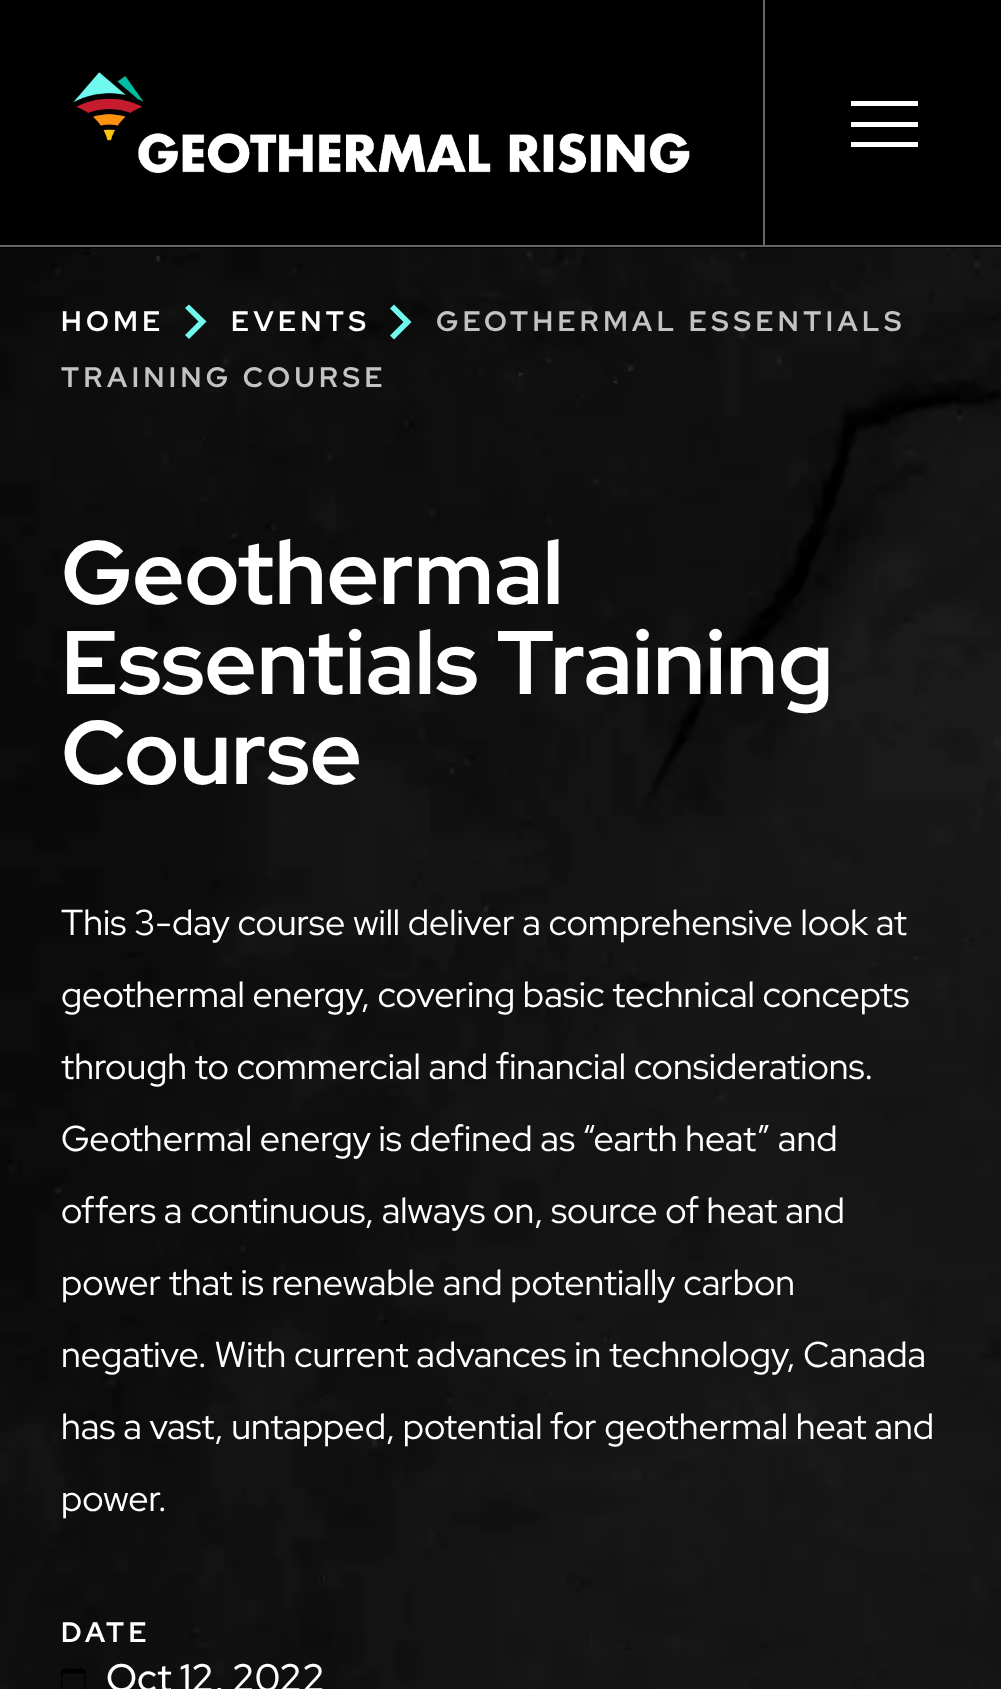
<svg xmlns="http://www.w3.org/2000/svg" width="1001" height="1689" viewBox="0 0 1001 1689">
  <rect width="100%" height="100%" fill="rgb(255,255,255)"/>
  <rect x="0" y="0" width="1001" height="248" fill="rgb(0,0,0)"/>
  <rect x="0" y="245" width="1001" height="2" fill="rgb(102,102,102)"/>
  <image x="73" y="72" width="617" height="101" href="pic1.png"/>
  <rect x="763" y="0" width="2" height="245" fill="rgb(102,102,102)"/>
  <rect x="851" y="101" width="67" height="5" fill="rgb(255,255,255)"/>
  <rect x="851" y="122" width="67" height="5" fill="rgb(255,255,255)"/>
  <rect x="851" y="142" width="67" height="5" fill="rgb(255,255,255)"/>
  <image x="0" y="248" width="1001" height="1441" href="pic2.png"/>
  <path d="M411.5 322L394 304.5L390 308.5L403.5 322L390 335.5L394 339.5Z" fill="rgb(112,250,239)"/>
  <g font-family="Red Hat Display" font-size="28.1" font-weight="bold" letter-spacing="4.5" fill="rgb(195,195,195)">
    <text x="436" y="331">GEOTHERMAL ESSENTIALS</text>
    <text x="61" y="387">TRAINING COURSE</text>
  </g>
  <text x="61" y="331" font-family="Red Hat Display" font-size="28.1" font-weight="bold" letter-spacing="4.5" fill="rgb(255,255,255)">HOME</text>
  <path d="M189 304.5L185 308L198.5 321.5L185 335L189 339L206.5 321.5Z" fill="rgb(112,250,239)"/>
  <text x="231" y="331" font-family="Red Hat Display" font-size="28.1" font-weight="bold" letter-spacing="4.5" fill="rgb(255,255,255)">EVENTS</text>
  <g font-family="Red Hat Display" font-size="90" font-weight="bold" fill="rgb(255,255,255)">
    <text>
      <tspan x="61" y="604">Geothermal</tspan>
      <tspan x="61" y="694">Essentials Training</tspan>
      <tspan x="61" y="784">Course</tspan>
    </text>
  </g>
  <g font-family="Red Hat Display" font-size="36" fill="rgb(255,255,255)">
    <text x="61" y="935">This 3-day course will deliver a comprehensive look at</text>
    <text x="61" y="1007">geothermal energy, covering basic technical concepts</text>
    <text x="61" y="1079">through to commercial and financial considerations.</text>
    <text x="61" y="1151">Geothermal energy is defined as “earth heat” and</text>
    <text x="61" y="1223">offers a continuous, always on, source of heat and</text>
    <text x="61" y="1295">power that is renewable and potentially carbon</text>
    <text x="61" y="1367">negative. With current advances in technology, Canada</text>
    <text x="61" y="1439">has a vast, untapped, potential for geothermal heat and</text>
    <text x="61" y="1511">power.</text>
  </g>
  <text x="61" y="1642" font-family="Red Hat Display" font-size="28.1" font-weight="bold" letter-spacing="4.5" fill="rgb(255,255,255)">DATE</text>
  <image x="61" y="1667" width="25" height="22" href="pic3.png"/>
  <text x="106" y="1691" font-family="Red Hat Display" font-size="38.25" font-weight="500" fill="rgb(255,255,255)">Oct 12, 2022</text>
</svg>
